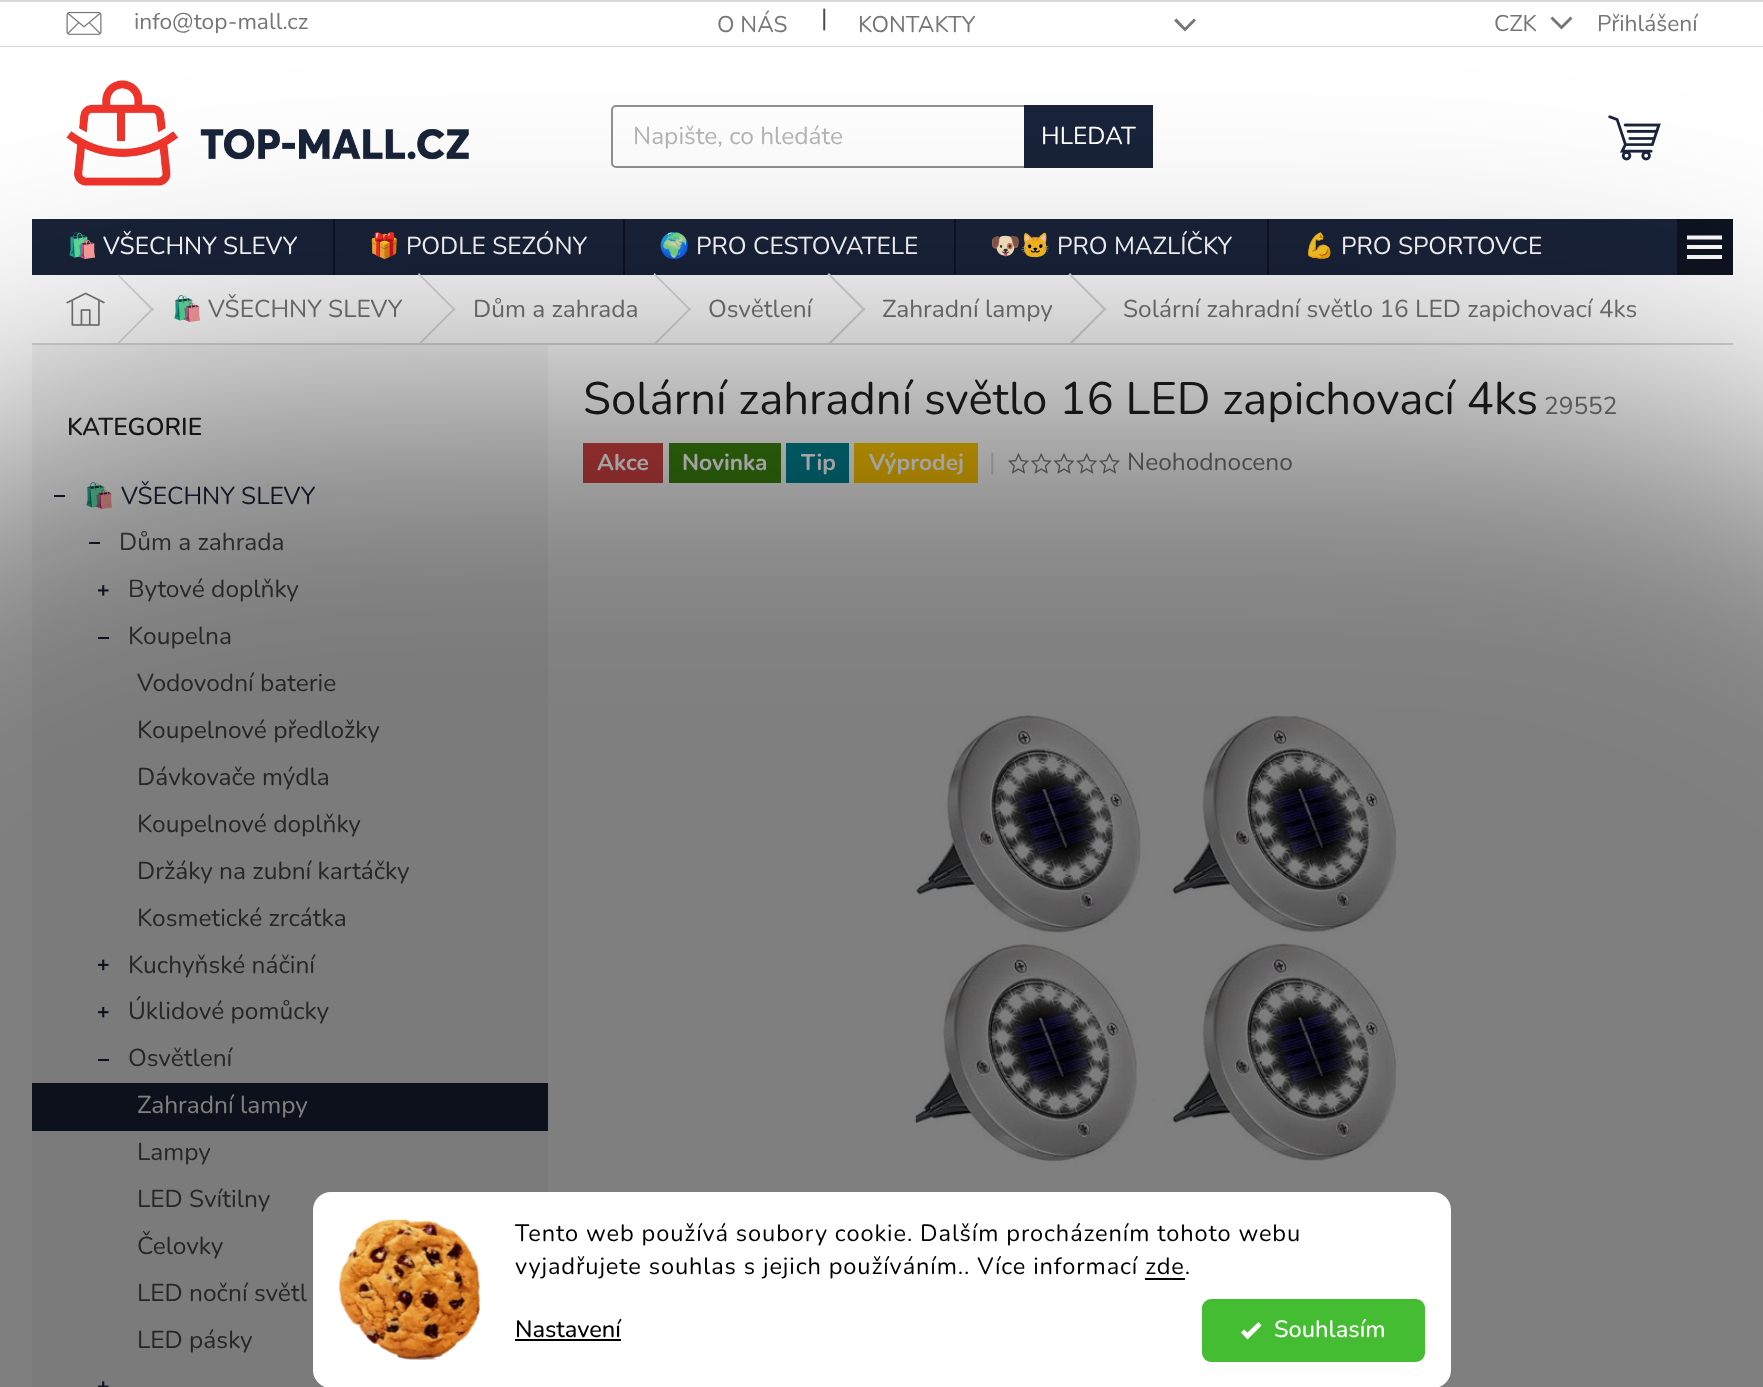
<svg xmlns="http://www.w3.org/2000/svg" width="1763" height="1387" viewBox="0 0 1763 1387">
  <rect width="100%" height="100%" fill="rgb(255,255,255)"/>
  <rect x="0" y="0" width="1763" height="2" fill="rgb(218,218,218)"/>
  <rect x="0" y="46" width="1763" height="1" fill="rgb(218,218,218)"/>
  <image x="66" y="11" width="36" height="24" href="pic1.png"/>
  <g font-family="Nunito" font-size="22.75" fill="rgb(118,118,118)">
    <text x="134" y="29">info@top-mall.cz</text>
    <text x="717" y="32">O NÁS</text>
  </g>
  <text x="821" y="26" font-family="Nunito" font-size="24.5" fill="rgb(77,77,77)">|</text>
  <text x="858" y="32" font-family="Nunito" font-size="22.75" fill="rgb(118,118,118)">KONTAKTY</text>
  <path d="M1174 20.5L1176.5 18.5L1185 27.5L1194 18.5L1196 20.5L1185 31.5Z" fill="rgb(118,118,118)"/>
  <text x="1494" y="31" font-family="Nunito" font-size="22.75" fill="rgb(118,118,118)">CZK</text>
  <path d="M1550.5 18.5L1552.5 16.5L1561.5 25.5L1570.5 16.5L1572.5 18.5L1561.5 29.5Z" fill="rgb(118,118,118)"/>
  <text x="1597" y="31" font-family="Nunito" font-size="22.75" fill="rgb(118,118,118)">Přihlášení</text>
  <image x="66" y="80" width="403" height="106" href="pic2.png"/>
  <rect x="612" y="106" width="540" height="61" rx="4" fill="none" stroke="rgb(145,145,145)" stroke-width="2"/>
  <text x="633" y="144" font-family="Nunito" font-size="24.5" fill="rgb(182,182,182)">Napište, co hledáte</text>
  <rect x="1024" y="105" width="129" height="63" fill="rgb(25,35,57)"/>
  <text x="1041" y="144" font-family="Nunito" font-size="24.5" fill="rgb(255,255,255)">HLEDAT</text>
  <image x="1608" y="115" width="53" height="46" href="pic3.png"/>
  <rect x="32" y="219" width="1645" height="56" fill="rgb(25,35,57)"/>
  <text x="67" y="254" font-family="Noto Color Emoji" font-size="24.5" fill="rgb(255,255,255)">🛍️</text>
  <text x="103" y="254" font-family="Nunito" font-size="24.5" fill="rgb(255,255,255)">VŠECHNY SLEVY</text>
  <rect x="333" y="219" width="2" height="56" fill="rgb(14,20,32)"/>
  <text x="369" y="254" font-family="Noto Color Emoji" font-size="24.5" fill="rgb(255,255,255)">🎁</text>
  <text x="406" y="254" font-family="Nunito" font-size="24.5" fill="rgb(255,255,255)">PODLE SEZÓNY</text>
  <rect x="623" y="219" width="2" height="56" fill="rgb(14,20,32)"/>
  <text x="659" y="254" font-family="Noto Color Emoji" font-size="24.5" fill="rgb(255,255,255)">🌍</text>
  <text x="696" y="254" font-family="Nunito" font-size="24.5" fill="rgb(255,255,255)">PRO CESTOVATELE</text>
  <rect x="954" y="219" width="2" height="56" fill="rgb(14,20,32)"/>
  <text x="990" y="254" font-family="Noto Color Emoji" font-size="24.5" fill="rgb(255,255,255)">🐶🐱</text>
  <text x="1057" y="254" font-family="Nunito" font-size="24.5" fill="rgb(255,255,255)">PRO MAZLÍČKY</text>
  <rect x="1267" y="219" width="2" height="56" fill="rgb(14,20,32)"/>
  <text x="1304" y="254" font-family="Noto Color Emoji" font-size="24.5" fill="rgb(255,255,255)">💪</text>
  <text x="1341" y="254" font-family="Nunito" font-size="24.5" fill="rgb(255,255,255)">PRO SPORTOVCE</text>
  <rect x="1677" y="219" width="56" height="56" fill="rgb(14,20,32)"/>
  <path d="M1687 259H1722V255H1687ZM1687 249H1722V245H1687ZM1687 235.5V239.5H1722V235.5Z" fill="rgb(255,255,255)"/>
  <rect x="32" y="343" width="1701" height="2" fill="rgb(218,218,218)"/>
  <image x="66" y="292" width="39" height="34" href="pic4.png"/>
  <path d="M117.5 275.5L118.5 274.5L154 309.5L152.5 311Z" fill="rgb(218,218,218)"/>
  <path d="M152.5 307.5L154 309L118.5 344L117.5 343Z" fill="rgb(218,218,218)"/>
  <text x="172" y="317" font-family="Noto Color Emoji" font-size="24.5" fill="rgb(118,118,118)">🛍️</text>
  <text x="208" y="317" font-family="Nunito" font-size="24.5" fill="rgb(118,118,118)">VŠECHNY SLEVY</text>
  <path d="M418 274.5L419 273L455.5 309.5L454.5 311Z" fill="rgb(218,218,218)"/>
  <rect x="32" y="345" width="516" height="1042" fill="rgb(246,246,246)"/>
  <path d="M454.5 307.5L455.5 309L419 345.5L418 344Z" fill="rgb(218,218,218)"/>
  <text x="473" y="317" font-family="Nunito" font-size="24.5" fill="rgb(118,118,118)">Dům a zahrada</text>
  <path d="M653.5 274.5L654.5 273L691 309.5L690 311Z" fill="rgb(218,218,218)"/>
  <path d="M690 307.5L691 309L654.5 345.5L653.5 344Z" fill="rgb(218,218,218)"/>
  <text x="708" y="317" font-family="Nunito" font-size="24.5" fill="rgb(118,118,118)">Osvětlení</text>
  <path d="M827.5 274.5L829 273L865.5 309.5L864 311Z" fill="rgb(218,218,218)"/>
  <path d="M864 307.5L865.5 309L829 345.5L827.5 344Z" fill="rgb(218,218,218)"/>
  <text x="882" y="317" font-family="Nunito" font-size="24.5" fill="rgb(118,118,118)">Zahradní lampy</text>
  <path d="M1068.5 274.5L1070 273L1106.5 309.5L1105 311Z" fill="rgb(218,218,218)"/>
  <path d="M1105 307.5L1106.5 309L1070 345.5L1068.5 344Z" fill="rgb(218,218,218)"/>
  <text x="1123" y="317" font-family="Nunito" font-size="24.5" fill="rgb(118,118,118)">Solární zahradní světlo 16 LED zapichovací 4ks</text>
  <text x="67" y="435" font-family="Nunito" font-size="24.5" font-weight="600" fill="rgb(31,31,31)">KATEGORIE</text>
  <rect x="54" y="495" width="11" height="2" fill="rgb(25,35,57)"/>
  <text x="84" y="504" font-family="Noto Color Emoji" font-size="24.5" fill="rgb(25,35,57)">🛍️</text>
  <text x="121" y="504" font-family="Nunito" font-size="24.5" fill="rgb(25,35,57)">VŠECHNY SLEVY</text>
  <rect x="89" y="542" width="11" height="2" fill="rgb(25,35,57)"/>
  <text x="119" y="550" font-family="Nunito" font-size="24.5" fill="rgb(77,77,77)">Dům a zahrada</text>
  <image x="98" y="585" width="11" height="11" href="pic5.png"/>
  <text x="128" y="597" font-family="Nunito" font-size="24.5" fill="rgb(77,77,77)">Bytové doplňky</text>
  <rect x="98" y="637" width="11" height="2" fill="rgb(25,35,57)"/>
  <g font-family="Nunito" font-size="24.5" fill="rgb(77,77,77)">
    <text x="128" y="644">Koupelna</text>
    <text>
      <tspan x="137" y="691">Vodovodní baterie</tspan>
      <tspan x="137" y="738">Koupelnové předložky</tspan>
      <tspan x="137" y="785">Dávkovače mýdla</tspan>
      <tspan x="137" y="832">Koupelnové doplňky</tspan>
      <tspan x="137" y="879">Držáky na zubní kartáčky</tspan>
      <tspan x="137" y="926">Kosmetické zrcátka</tspan>
    </text>
  </g>
  <image x="98" y="959" width="11" height="12" href="pic6.png"/>
  <text x="128" y="973" font-family="Nunito" font-size="24.5" fill="rgb(77,77,77)">Kuchyňské náčiní</text>
  <image x="98" y="1006" width="11" height="12" href="pic7.png"/>
  <text x="128" y="1019" font-family="Nunito" font-size="24.5" fill="rgb(77,77,77)">Úklidové pomůcky</text>
  <rect x="98" y="1059" width="11" height="2" fill="rgb(25,35,57)"/>
  <text x="128" y="1066" font-family="Nunito" font-size="24.5" fill="rgb(77,77,77)">Osvětlení</text>
  <rect x="32" y="1083" width="516" height="48" fill="rgb(25,35,57)"/>
  <text x="137" y="1113" font-family="Nunito" font-size="24.5" fill="rgb(255,255,255)">Zahradní lampy</text>
  <g font-family="Nunito" font-size="24.5" fill="rgb(77,77,77)">
    <text>
      <tspan x="137" y="1160">Lampy</tspan>
      <tspan x="137" y="1207">LED Svítilny</tspan>
      <tspan x="137" y="1254">Čelovky</tspan>
      <tspan x="137" y="1301">LED noční světl</tspan>
      <tspan x="137" y="1348">LED pásky</tspan>
    </text>
  </g>
  <image x="98" y="1381" width="11" height="6" href="pic8.png"/>
  <text x="583" y="414" font-family="Nunito" font-size="45.5" fill="rgb(31,31,31)">Solární zahradní světlo 16 LED zapichovací 4ks</text>
  <text x="1544" y="414" font-family="Nunito" font-size="24.5" fill="rgb(118,118,118)">29552</text>
  <rect x="583" y="443" width="80" height="40" fill="rgb(211,67,67)"/>
  <text x="597" y="470" font-family="Nunito" font-size="22.75" font-weight="bold" fill="rgb(255,255,255)">Akce</text>
  <rect x="669" y="443" width="112" height="40" fill="rgb(60,132,15)"/>
  <text x="682" y="470" font-family="Nunito" font-size="22.75" font-weight="bold" fill="rgb(255,255,255)">Novinka</text>
  <rect x="786" y="443" width="63" height="40" fill="rgb(0,131,146)"/>
  <text x="801" y="470" font-family="Nunito" font-size="22.75" font-weight="bold" fill="rgb(255,255,255)">Tip</text>
  <rect x="854" y="443" width="124" height="40" fill="rgb(255,199,2)"/>
  <text x="869" y="470" font-family="Nunito" font-size="22.75" font-weight="bold" fill="rgb(255,255,255)">Výprodej</text>
  <text x="989" y="470" font-family="Nunito" font-size="24.5" fill="rgb(218,218,218)">|</text>
  <image x="1008" y="453" width="21" height="21" href="pic9.png"/>
  <image x="1030" y="453" width="22" height="21" href="pic10.png"/>
  <image x="1053" y="453" width="22" height="21" href="pic11.png"/>
  <image x="1076" y="453" width="22" height="21" href="pic12.png"/>
  <image x="1099" y="453" width="21" height="21" href="pic9.png"/>
  <text x="1127" y="470" font-family="Nunito" font-size="24.5" fill="rgb(118,118,118)">Neohodnoceno</text>
  <image x="913" y="715" width="486" height="449" href="pic13.png"/>
  <rect x="-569" y="380" width="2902" height="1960" rx="900" fill="rgba(0,0,0,0.5)" filter="blur(140px)"/>
  <rect x="313" y="1192" width="1138" height="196" rx="18" fill="rgb(255,255,255)"/>
  <image x="339" y="1219" width="141" height="141" href="pic14.png"/>
  <g font-family="Nunito" font-size="23.6" letter-spacing="0.88" fill="rgb(0,0,0)">
    <text>
      <tspan x="515" y="1241">Tento web používá soubory cookie. Dalším procházením tohoto webu</tspan>
      <tspan x="515" y="1274">vyjadřujete souhlas s jejich používáním.. Více informací zde.</tspan>
    </text>
  </g>
  <rect x="1145" y="1278" width="40" height="2" fill="rgb(0,0,0)"/>
  <text x="515" y="1337" font-family="Nunito" font-size="23.6" font-weight="500" fill="rgb(0,0,0)">Nastavení</text>
  <rect x="515" y="1339" width="106" height="2" fill="rgb(0,0,0)"/>
  <rect x="1203" y="1300" width="221" height="61" rx="8" fill="rgb(68,189,50)" stroke="rgb(68,189,50)" stroke-width="2"/>
  <path d="M1258.5 1322L1247.5 1332.5L1244 1329.5L1241 1332.5L1247.5 1339.5L1261.5 1325.5Z" fill="rgb(255,255,255)"/>
  <text x="1274" y="1337" font-family="Nunito" font-size="23.6" font-weight="500" fill="rgb(255,255,255)">Souhlasím</text>
</svg>
